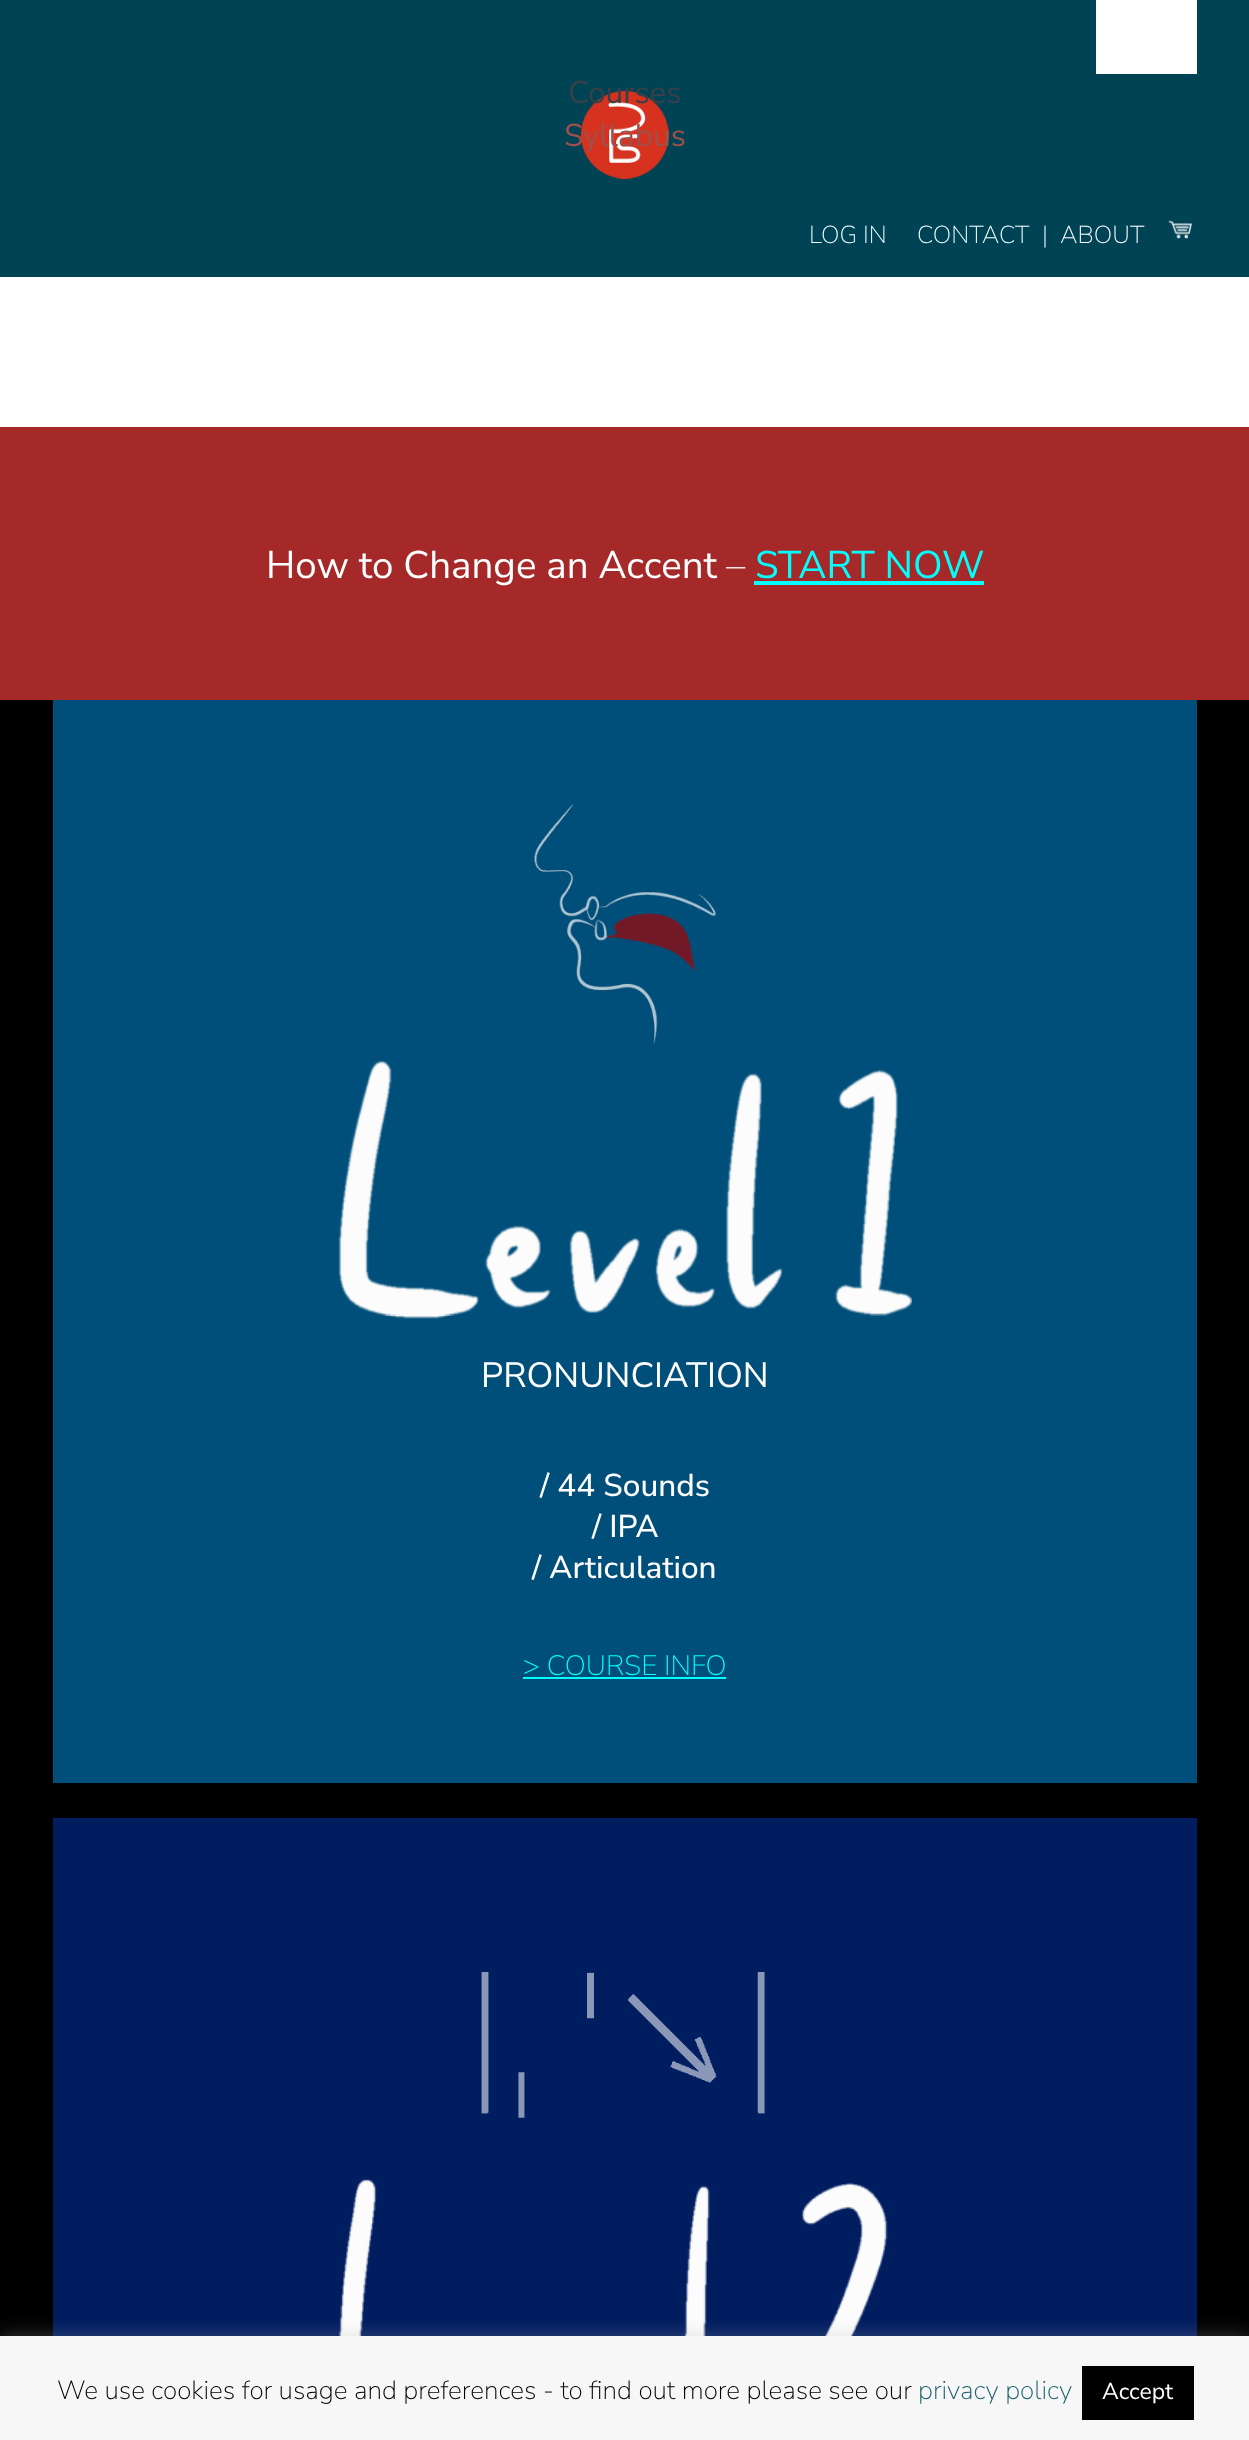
<svg xmlns="http://www.w3.org/2000/svg" width="1249" height="2440" viewBox="0 0 1249 2440">
  <rect width="100%" height="100%" fill="rgb(255,255,255)"/>
  <rect x="0" y="0" width="1249" height="277" fill="rgb(0,67,84)"/>
  <rect x="1096" y="0" width="101" height="74" fill="rgb(255,255,255)"/>
  <image x="581" y="91" width="88" height="88" href="pic1.png"/>
  <text x="568" y="103" font-family="Nunito Sans" font-size="31.5" fill="rgb(57,64,72)">Courses</text>
  <text x="564" y="146" font-family="Nunito Sans" font-size="31.5" fill="rgb(159,80,74)">Syllabus</text>
  <g font-family="Nunito Sans" font-size="24.5" font-weight="200" fill="rgb(237,255,255)">
    <text x="809" y="243">LOG IN</text>
    <text x="917" y="243">CONTACT</text>
    <text x="1042" y="243">|</text>
  </g>
  <text x="1060" y="243" font-family="Nunito Sans" font-size="24.5" font-weight="200" fill="rgb(255,255,255)">ABOUT</text>
  <image x="1168" y="220" width="24" height="19" href="pic2.png"/>
  <rect x="0" y="427" width="1249" height="273" fill="rgb(165,41,41)"/>
  <text x="266" y="578" font-family="Nunito Sans" font-size="38.5" fill="rgb(255,255,255)">How to Change an Accent</text>
  <text x="726" y="578" font-family="Nunito Sans" font-size="38.5" font-weight="200" fill="rgb(255,255,255)">–</text>
  <text x="755" y="578" font-family="Nunito Sans" font-size="38.5" fill="rgb(0,255,255)">START NOW</text>
  <rect x="754" y="581" width="230" height="4" fill="rgb(0,255,255)"/>
  <rect x="0" y="700" width="1249" height="1636" fill="rgb(0,0,0)"/>
  <rect x="53" y="700" width="1144" height="1083" fill="rgb(0,79,122)"/>
  <image x="534" y="804" width="182" height="241" href="pic3.png"/>
  <image x="338" y="1061" width="574" height="258" href="pic4.png"/>
  <text x="481" y="1387" font-family="Nunito Sans" font-size="35" fill="rgb(255,255,255)">PRONUNCIATION</text>
  <g font-family="Nunito Sans" font-size="31.5" font-weight="500" fill="rgb(255,255,255)">
    <text x="540" y="1496">/ 44 Sounds</text>
    <text x="592" y="1537">/ IPA</text>
    <text x="532" y="1578">/ Articulation</text>
  </g>
  <text x="523" y="1675" font-family="Nunito Sans" font-size="28" font-weight="200" fill="rgb(0,255,255)">&gt; COURSE INFO</text>
  <rect x="523" y="1677" width="203" height="2" fill="rgb(0,255,255)"/>
  <rect x="53" y="1818" width="1144" height="518" fill="rgb(0,29,96)"/>
  <image x="481" y="1972" width="284" height="146" href="pic5.png"/>
  <image x="339" y="2179" width="549" height="157" href="pic6.png"/>
  <rect x="0" y="2335" width="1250" height="105" fill="rgba(172,171,171,0.3)" filter="blur(9px)"/>
  <rect x="0" y="2336" width="1249" height="104" fill="rgb(247,247,247)"/>
  <text x="57" y="2399" font-family="Nunito Sans" font-size="26.25" font-weight="200" fill="rgb(0,0,0)">We use cookies for usage and preferences - to find out more please see our</text>
  <text x="918" y="2399" font-family="Nunito Sans" font-size="26.25" font-weight="200" fill="rgb(25,95,109)">privacy policy</text>
  <rect x="1082" y="2366" width="112" height="54" fill="rgb(0,0,0)"/>
  <text x="1102" y="2399" font-family="Nunito Sans" font-size="23" fill="rgb(255,255,255)">Accept</text>
</svg>
